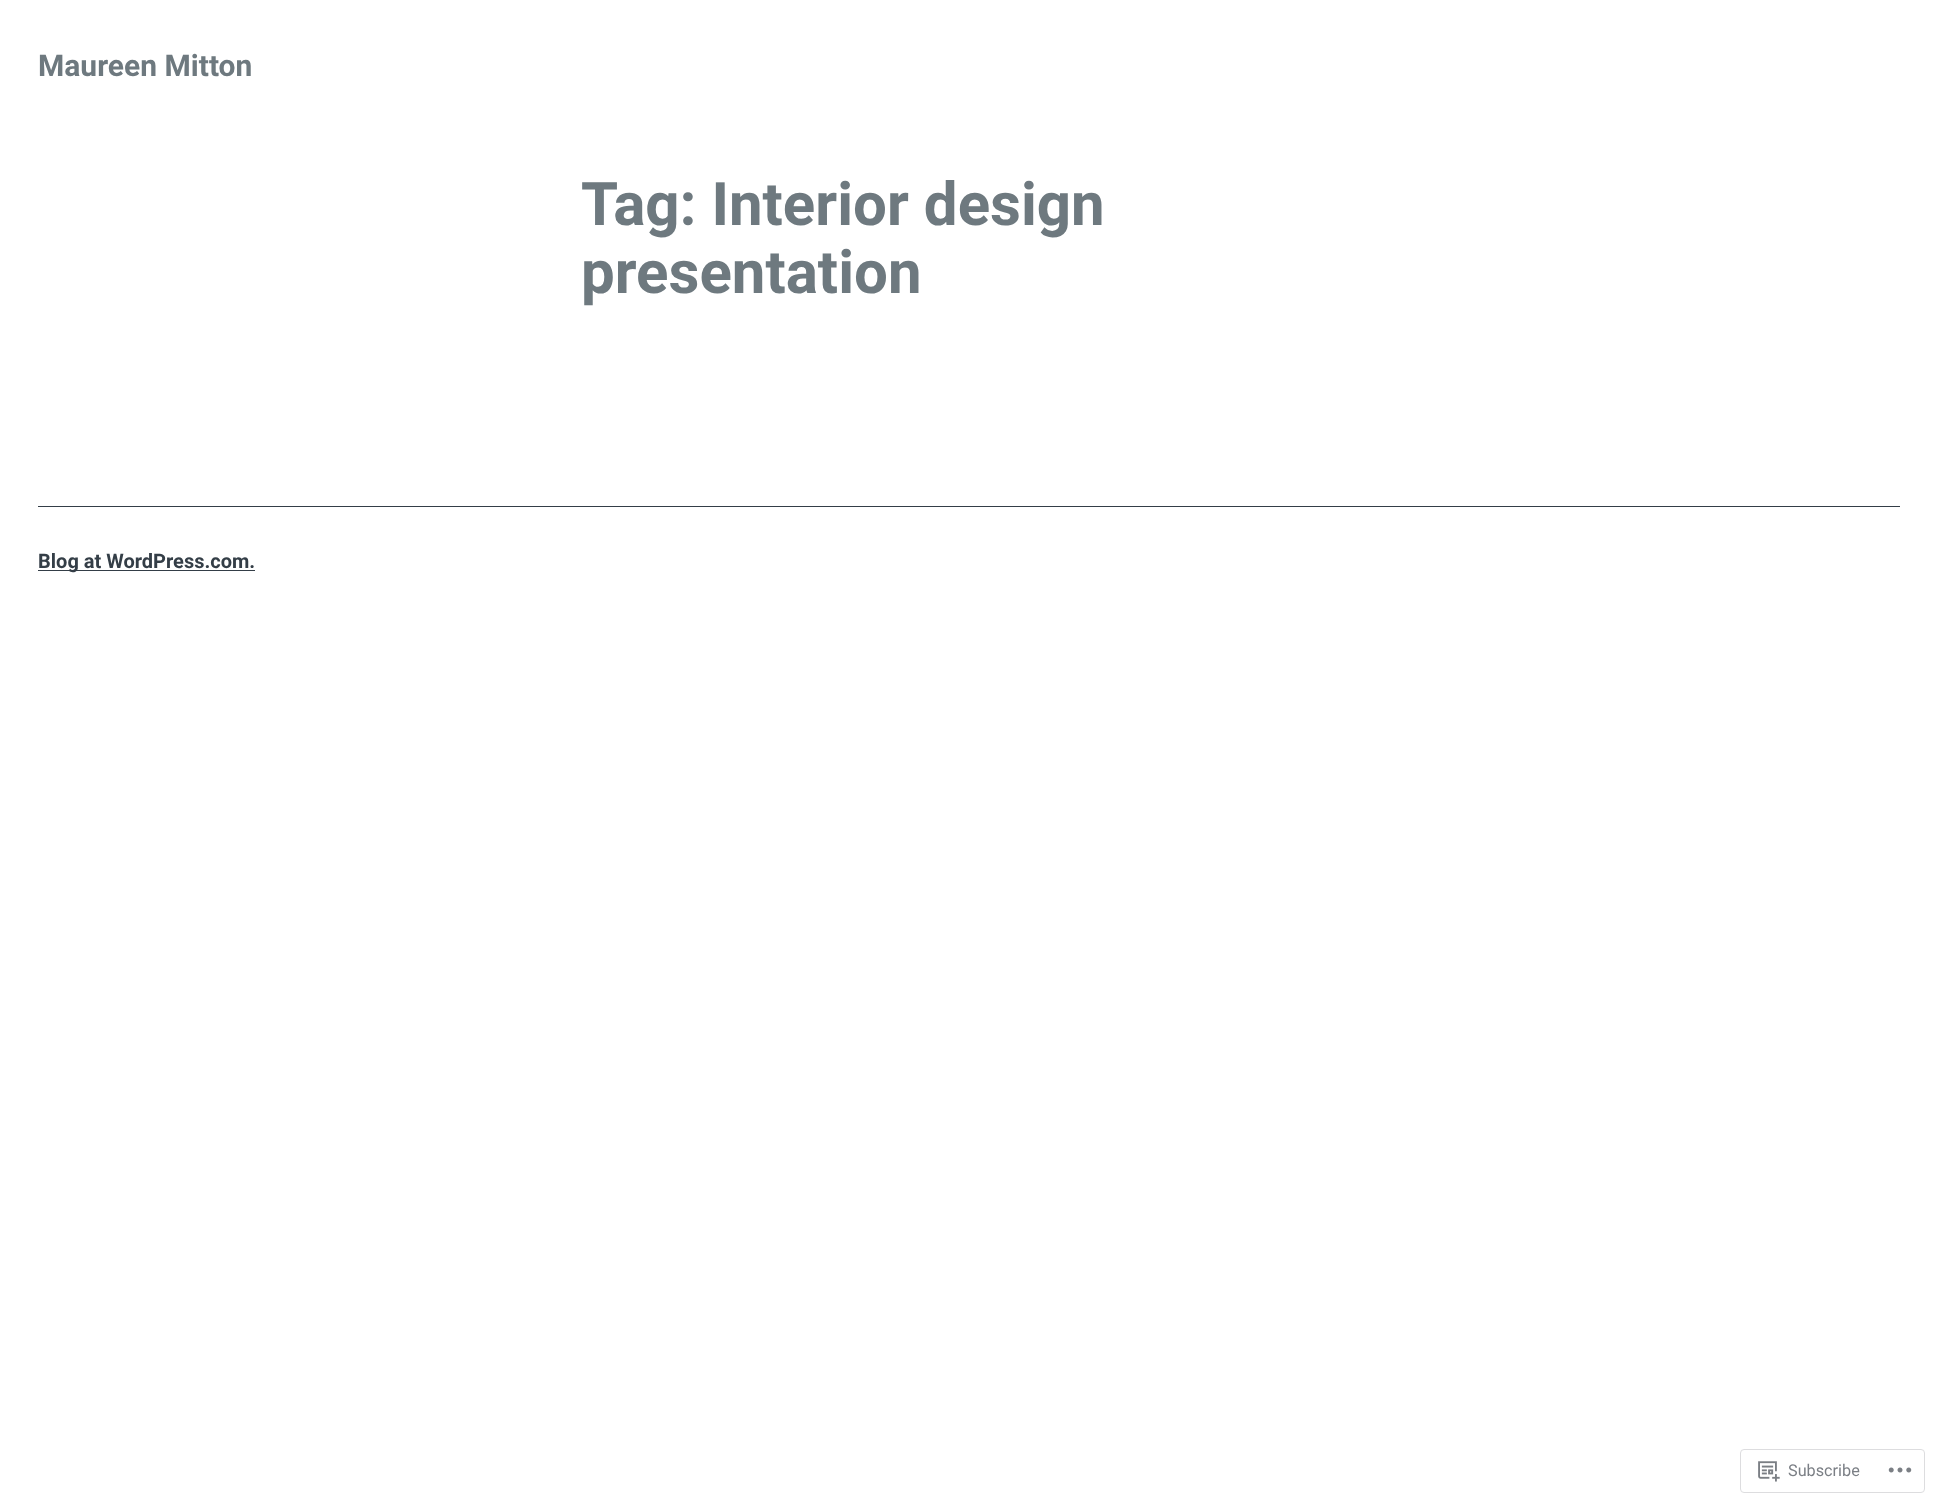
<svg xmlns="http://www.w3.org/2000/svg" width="1937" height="1505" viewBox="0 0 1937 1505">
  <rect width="100%" height="100%" fill="rgb(255,255,255)"/>
  <text x="38" y="76" font-family="Roboto" font-size="30" font-weight="bold" fill="rgb(110,121,127)">Maureen Mitton</text>
  <g font-family="Roboto" font-size="60" font-weight="bold" fill="rgb(110,121,127)">
    <text>
      <tspan x="581" y="225">Tag: Interior design</tspan>
      <tspan x="581" y="293">presentation</tspan>
    </text>
  </g>
  <rect x="38" y="506" width="1862" height="1" fill="rgb(52,62,71)"/>
  <rect x="38" y="570" width="217" height="1" fill="rgb(52,62,71)"/>
  <text x="38" y="568" font-family="Roboto" font-size="20" font-weight="bold" fill="rgb(52,62,71)">Blog at WordPress.com.</text>
  <rect x="1740.5" y="1449.5" width="184" height="43" rx="3.5" fill="none" stroke="rgb(221,221,223)"/>
  <image x="1758" y="1461" width="22" height="21" href="pic1.png"/>
  <text x="1788" y="1476" font-family="Roboto" font-size="16.25" fill="rgb(123,127,133)">Subscribe</text>
  <image x="1888" y="1467" width="24" height="6" href="pic2.png"/>
</svg>
